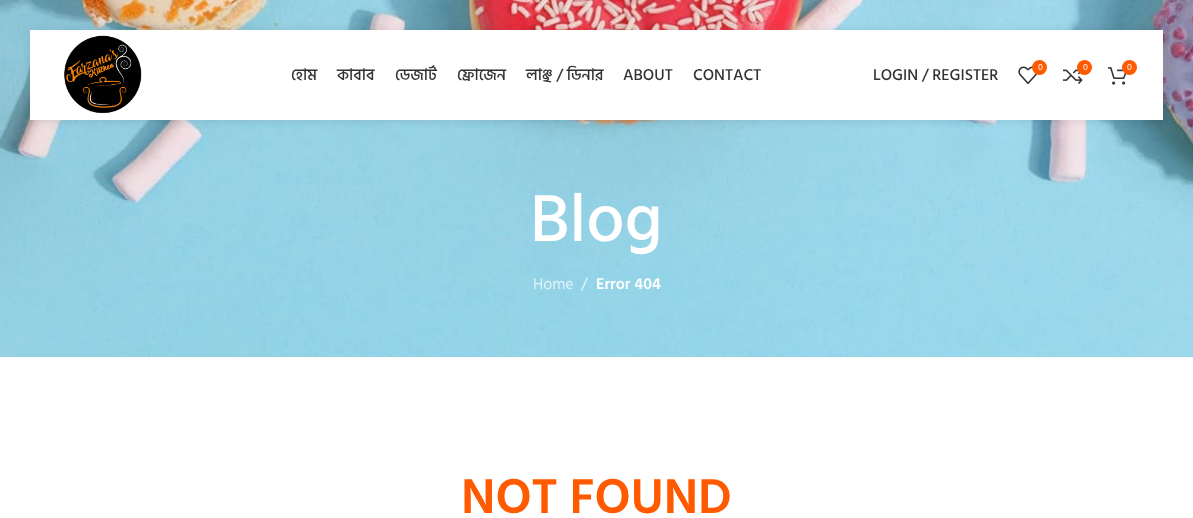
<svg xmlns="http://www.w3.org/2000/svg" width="1193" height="518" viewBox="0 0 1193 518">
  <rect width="100%" height="100%" fill="rgb(255,255,255)"/>
  <image x="0" y="0" width="1193" height="357" href="pic5.png"/>
  <rect x="30" y="31" width="1133" height="90" fill="rgba(0,0,0,0.1)" filter="blur(4px)"/>
  <rect x="30" y="30" width="1133" height="90" fill="rgb(255,255,255)"/>
  <image x="64" y="35" width="78" height="79" href="pic1.png"/>
  <g font-family="Hind Siliguri" font-size="16" font-weight="500" fill="rgb(51,51,51)">
    <text x="291" y="80">হোম</text>
    <text x="337" y="80">কাবাব</text>
    <text x="395" y="80">ডেজার্ট</text>
    <text x="457" y="80">ফ্রোজেন</text>
    <text x="526" y="80">লাঞ্ছ / ডিনার</text>
    <text x="623" y="80">ABOUT</text>
    <text x="693" y="80">CONTACT</text>
    <text x="873" y="80">LOGIN / REGISTER</text>
  </g>
  <image x="1018" y="66" width="20" height="18" href="pic2.png"/>
  <circle cx="1039.5" cy="67.5" r="7.5" fill="rgb(255,90,0)"/>
  <text x="1038" y="70" font-family="Hind Siliguri" font-size="9" fill="rgb(255,255,255)">0</text>
  <image x="1063" y="69" width="20" height="15" href="pic3.png"/>
  <circle cx="1084.5" cy="67.5" r="7.5" fill="rgb(255,90,0)"/>
  <text x="1083" y="70" font-family="Hind Siliguri" font-size="9" fill="rgb(255,255,255)">0</text>
  <image x="1108" y="67" width="19" height="18" href="pic4.png"/>
  <circle cx="1129.5" cy="67.5" r="7.5" fill="rgb(255,90,0)"/>
  <text x="1127" y="70" font-family="Hind Siliguri" font-size="9" fill="rgb(255,255,255)">0</text>
  <text x="530" y="241" font-family="Hind Siliguri" font-size="68" font-weight="500" fill="rgb(255,255,255)">Blog</text>
  <text x="533" y="289" font-family="Hind Siliguri" font-size="16" fill="rgb(223,242,248)">Home</text>
  <text x="581" y="289" font-family="Hind Siliguri" font-size="16" fill="rgb(233,246,250)">/</text>
  <text x="596" y="289" font-family="Hind Siliguri" font-size="16" font-weight="600" fill="rgb(255,255,255)">Error 404</text>
  <text x="461" y="513" font-family="Hind Siliguri" font-size="50" font-weight="600" fill="rgb(255,90,0)">NOT FOUND</text>
</svg>
